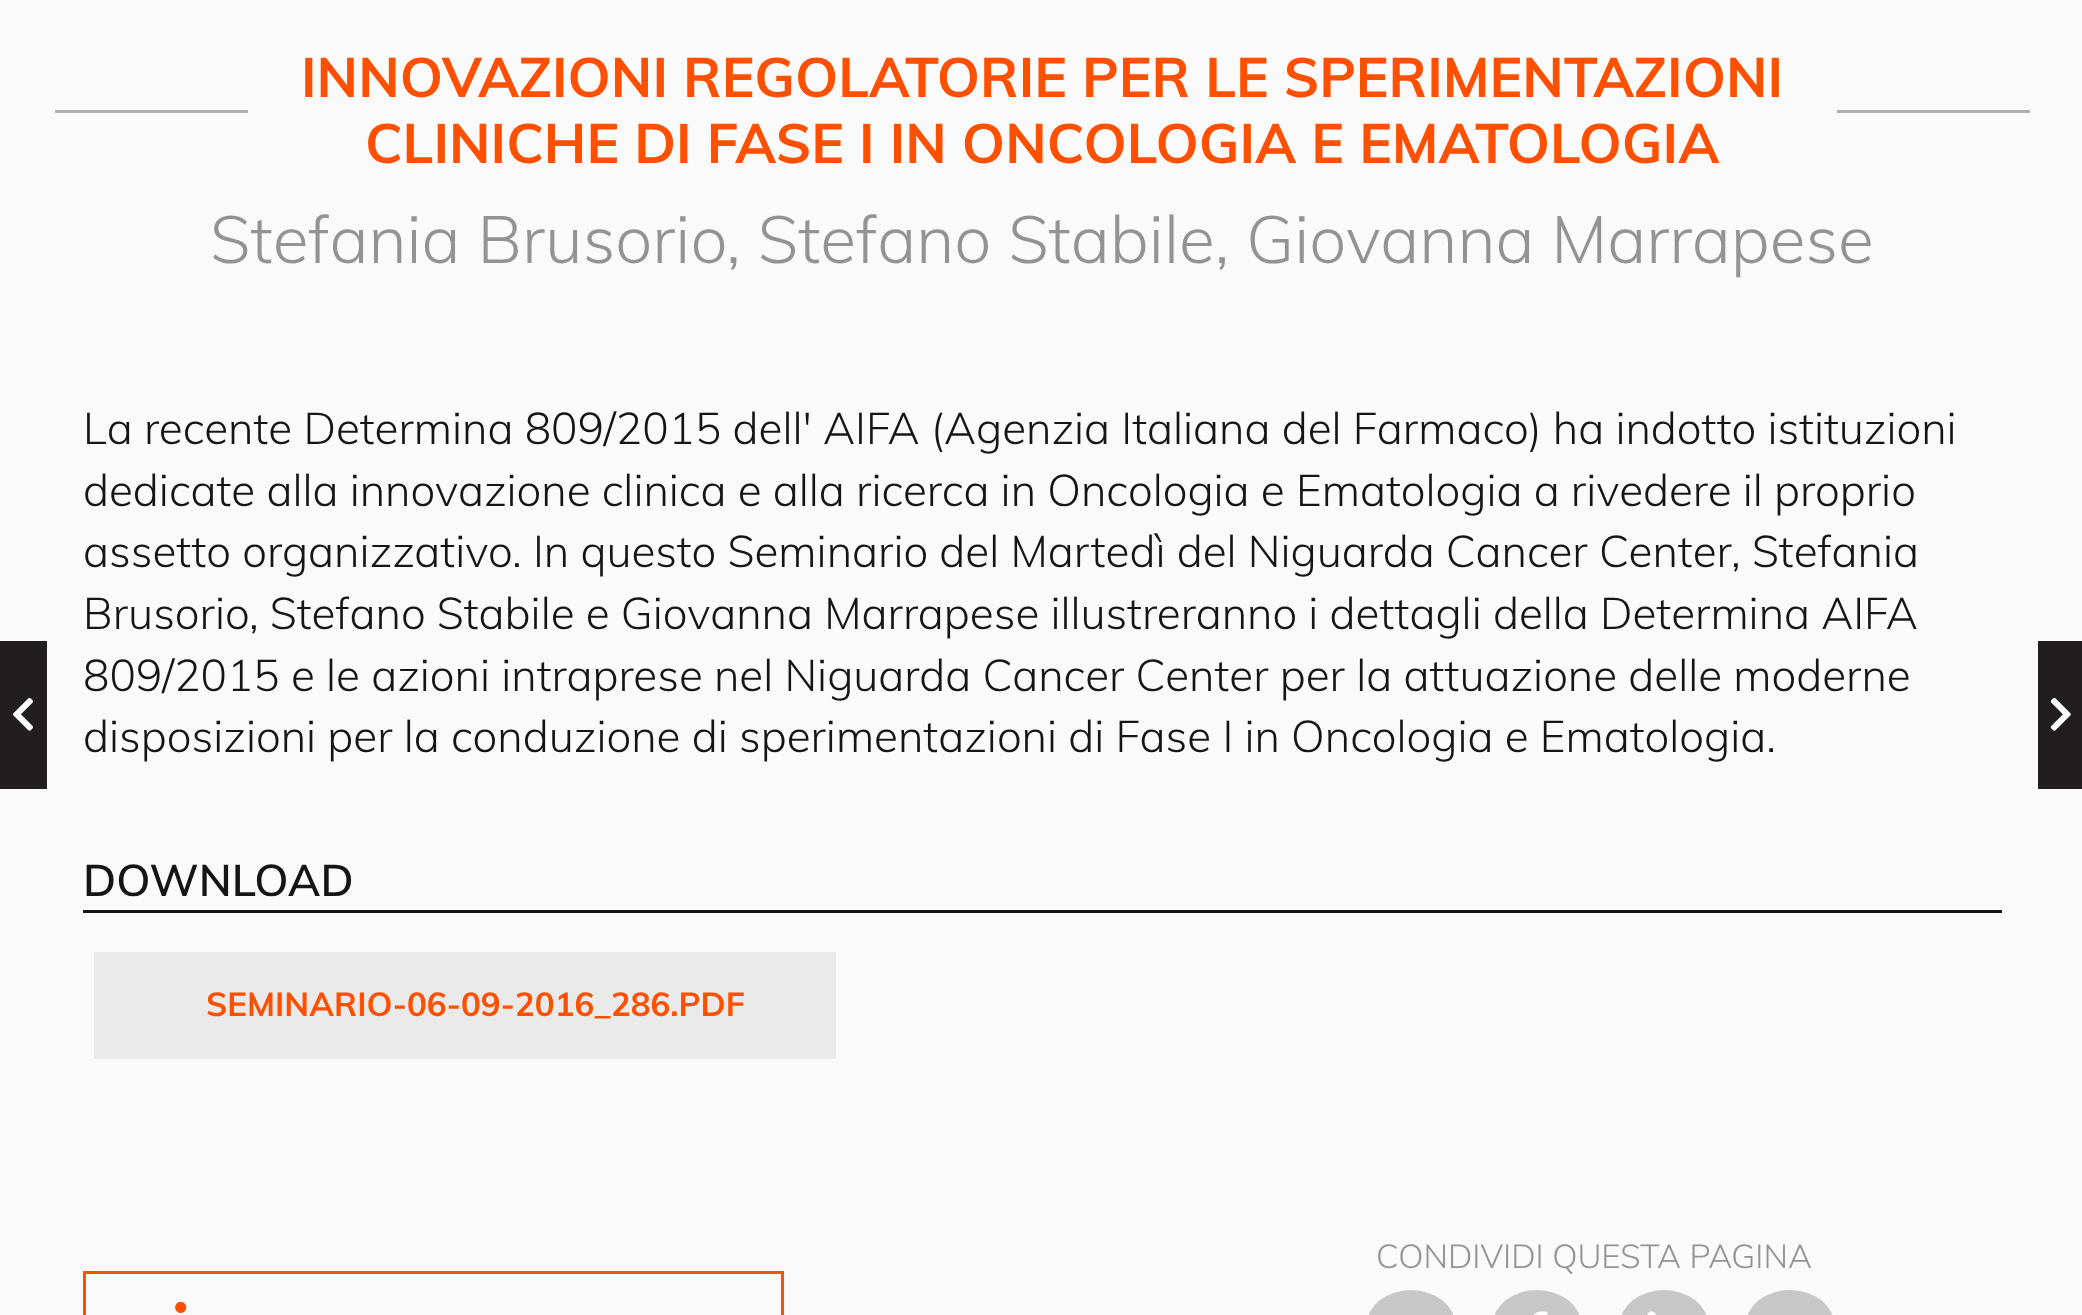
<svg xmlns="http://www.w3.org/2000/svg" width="2082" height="1315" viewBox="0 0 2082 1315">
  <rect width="100%" height="100%" fill="rgb(250,250,250)"/>
  <text x="301" y="97" font-family="Muli" font-size="55" font-weight="bold" fill="rgb(254,80,0)">INNOVAZIONI REGOLATORIE PER LE SPERIMENTAZIONI</text>
  <rect x="55" y="110" width="193" height="3" fill="rgb(175,175,175)"/>
  <rect x="1837" y="110" width="193" height="3" fill="rgb(175,175,175)"/>
  <text x="365" y="163" font-family="Muli" font-size="55" font-weight="bold" fill="rgb(254,80,0)">CLINICHE DI FASE I IN ONCOLOGIA E EMATOLOGIA</text>
  <text x="210" y="263" font-family="Muli" font-size="66" font-weight="300" fill="rgb(147,147,147)">Stefania Brusorio, Stefano Stabile, Giovanna Marrapese</text>
  <rect x="0" y="641" width="47" height="148" fill="rgb(33,30,31)"/>
  <image x="13" y="697" width="20" height="34" href="pic1.png"/>
  <g font-family="Muli" font-size="44" font-weight="300" fill="rgb(21,21,21)">
    <text>
      <tspan x="83" y="444">La recente Determina 809/2015 dell' AIFA (Agenzia Italiana del Farmaco) ha indotto istituzioni</tspan>
      <tspan x="83" y="506">dedicate alla innovazione clinica e alla ricerca in Oncologia e Ematologia a rivedere il proprio</tspan>
      <tspan x="83" y="567">assetto organizzativo. In questo Seminario del Martedì del Niguarda Cancer Center, Stefania</tspan>
      <tspan x="83" y="629">Brusorio, Stefano Stabile e Giovanna Marrapese illustreranno i dettagli della Determina AIFA</tspan>
      <tspan x="83" y="691">809/2015 e le azioni intraprese nel Niguarda Cancer Center per la attuazione delle moderne</tspan>
      <tspan x="83" y="752">disposizioni per la conduzione di sperimentazioni di Fase I in Oncologia e Ematologia.</tspan>
    </text>
  </g>
  <rect x="83" y="910" width="1919" height="3" fill="rgb(21,21,21)"/>
  <text x="83" y="896" font-family="Muli" font-size="44" font-weight="600" fill="rgb(21,21,21)">DOWNLOAD</text>
  <rect x="94" y="952" width="742" height="107" fill="rgb(234,234,234)"/>
  <text x="206" y="1016" font-family="Muli" font-size="33" font-weight="bold" fill="rgb(254,80,0)">SEMINARIO-06-09-2016_286.PDF</text>
  <text x="1376" y="1268" font-family="Muli" font-size="33" font-weight="300" fill="rgb(147,147,147)">CONDIVIDI QUESTA PAGINA</text>
  <rect x="1367" y="1290" width="88" height="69" rx="44" fill="rgb(199,199,199)"/>
  <rect x="1493" y="1290" width="88" height="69" rx="44" fill="rgb(199,199,199)"/>
  <image x="1534" y="1311" width="14" height="4" href="pic2.png"/>
  <rect x="1620" y="1290" width="88" height="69" rx="44" fill="rgb(199,199,199)"/>
  <image x="1647" y="1311" width="9" height="4" href="pic3.png"/>
  <rect x="1746" y="1290" width="88" height="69" rx="44" fill="rgb(199,199,199)"/>
  <rect x="84.5" y="1272.5" width="698" height="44" fill="none" stroke="rgb(254,80,0)" stroke-width="3"/>
  <image x="175" y="1301" width="12" height="12" href="pic4.png"/>
  <rect x="2038" y="641" width="44" height="148" fill="rgb(33,30,31)"/>
  <image x="2050" y="697" width="21" height="34" href="pic5.png"/>
</svg>
